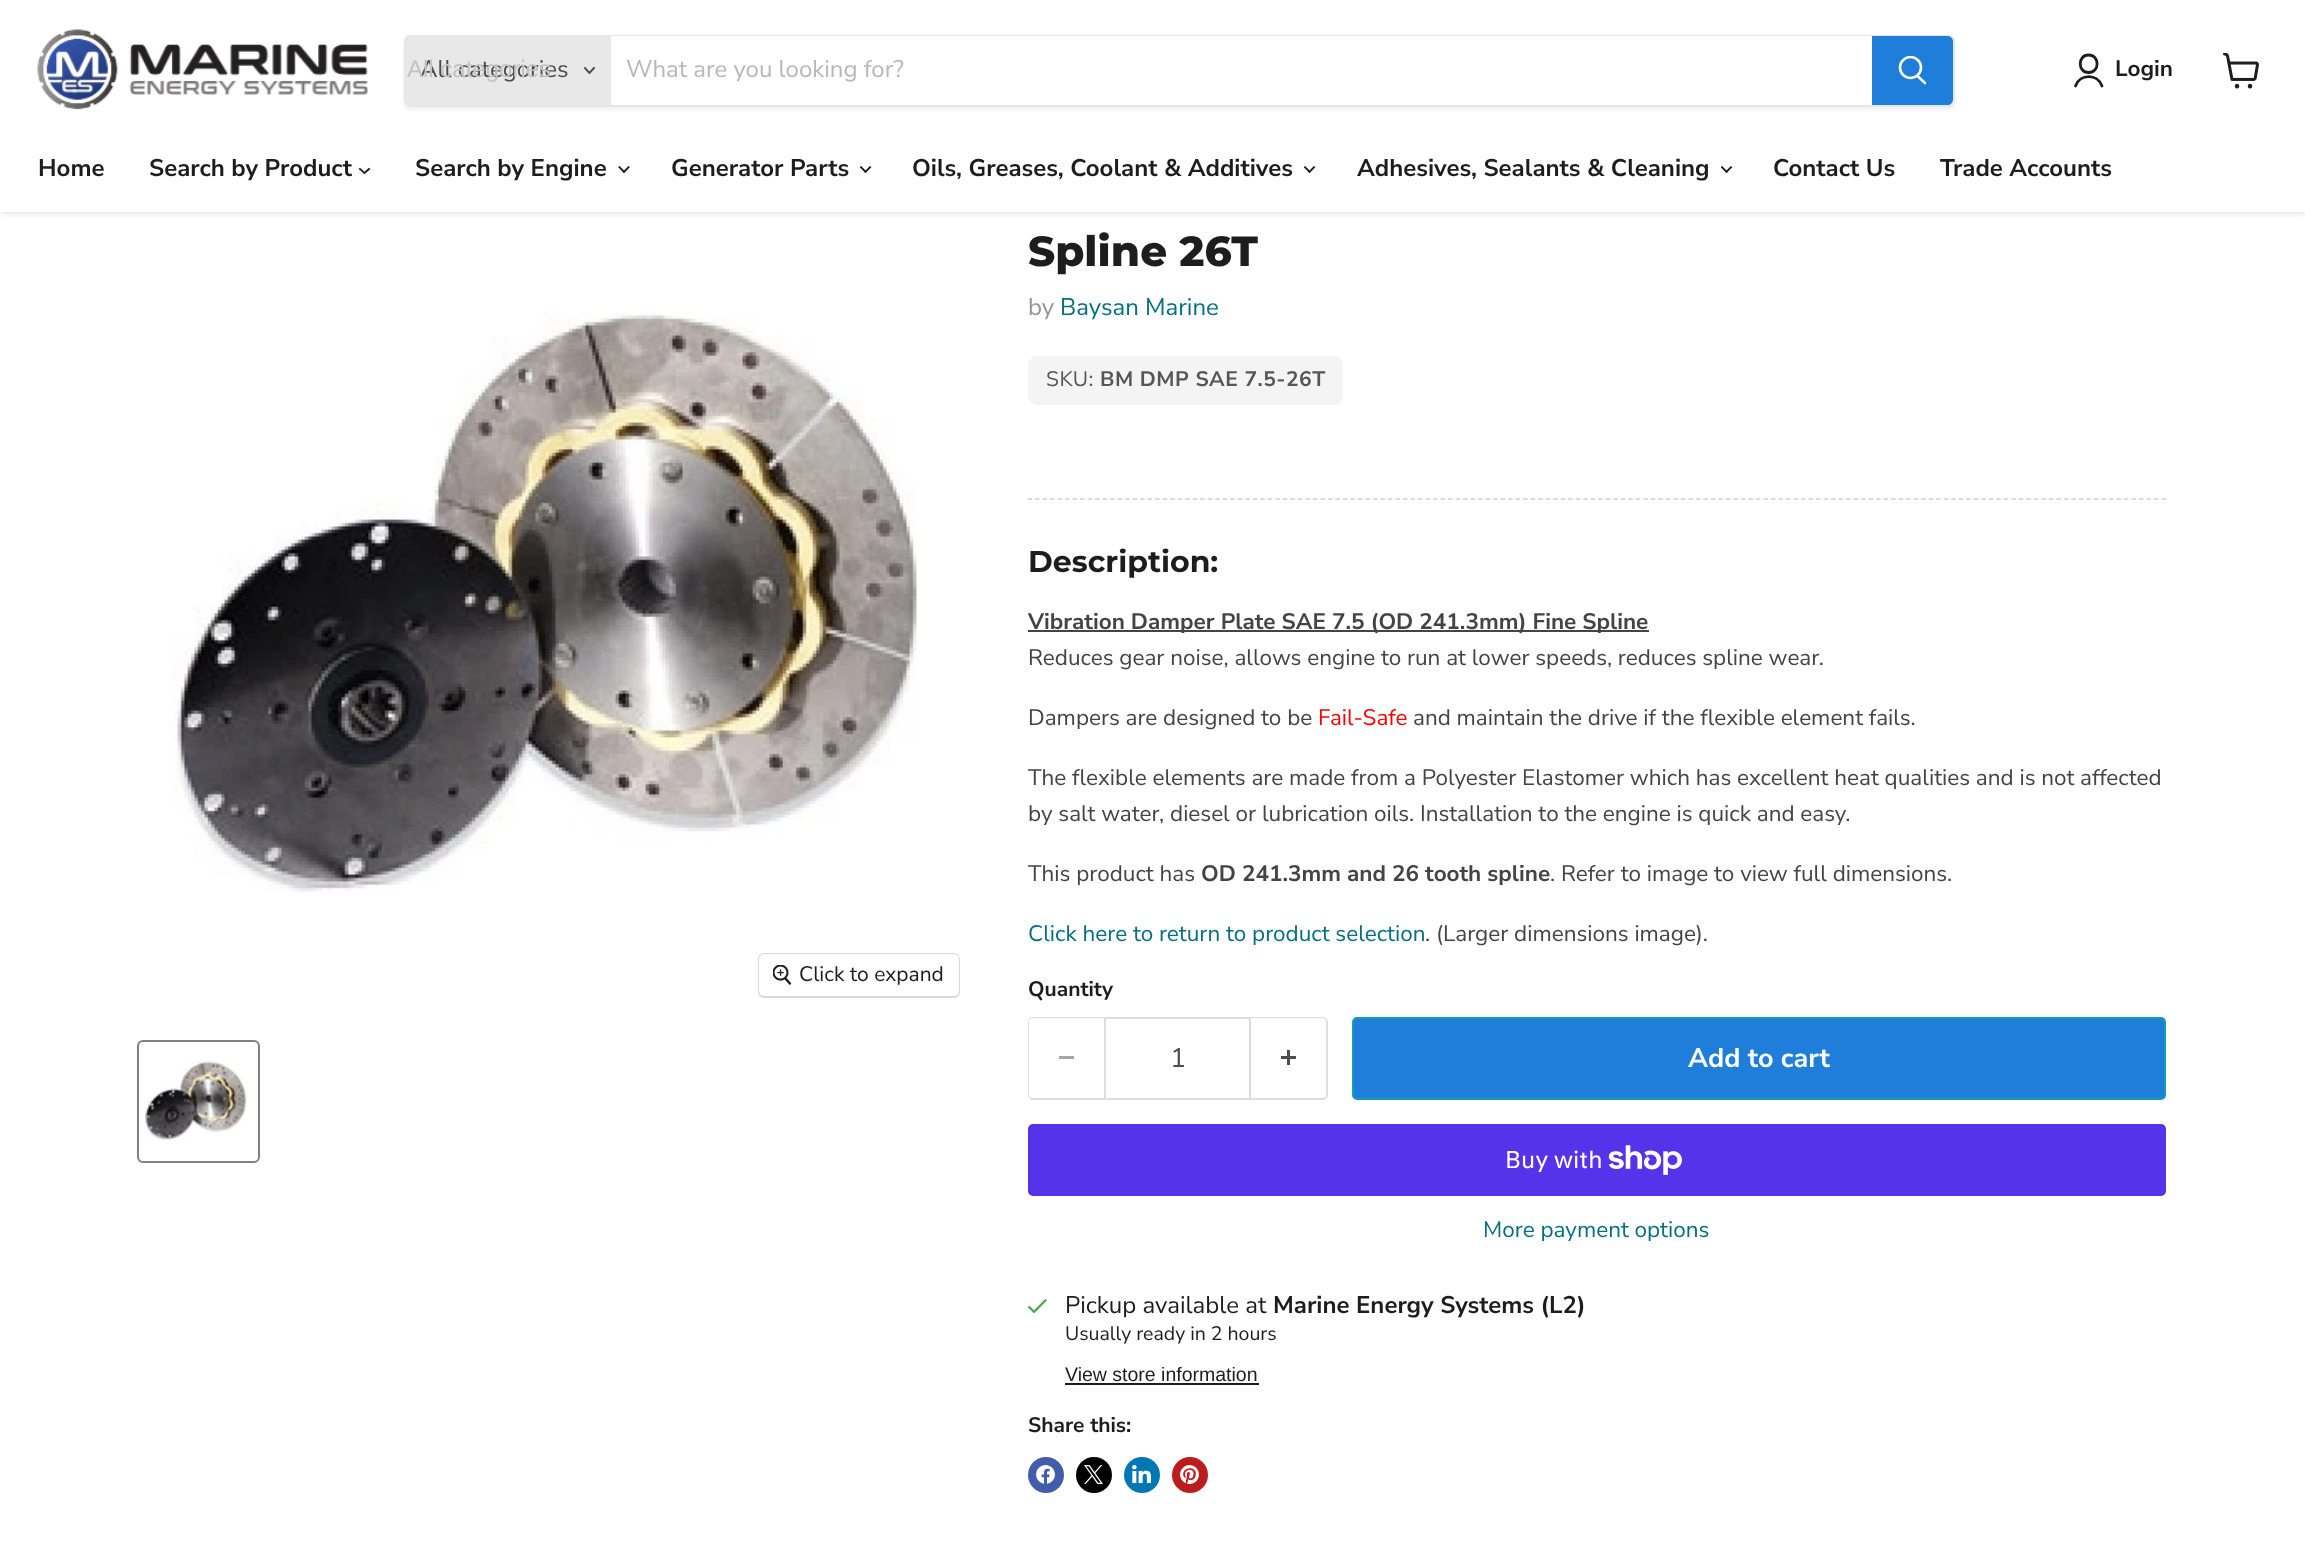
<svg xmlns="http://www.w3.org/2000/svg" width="2305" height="1553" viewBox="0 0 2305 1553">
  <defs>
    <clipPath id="clip1"><path d="M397 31H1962V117H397ZM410 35H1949C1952.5 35 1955 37.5 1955 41V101C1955 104.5 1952.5 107 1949 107H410C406.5 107 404 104.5 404 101V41C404 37.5 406.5 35 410 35Z" clip-rule="evenodd"/></clipPath>
    <clipPath id="clip2"><rect x="1898" y="56" width="30" height="31"/></clipPath>
  </defs>
  <rect width="100%" height="100%" fill="rgb(255,255,255)"/>
  <rect x="0" y="2" width="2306" height="211" fill="rgba(128,128,128,0.25)" filter="blur(3px)"/>
  <rect x="0" y="0" width="2305" height="212" fill="rgb(255,255,255)"/>
  <image x="37" y="29" width="331" height="81" href="pic1.png"/>
  <g clip-path="url(#clip1)">
    <rect x="404" y="38" width="1551" height="72" rx="6" fill="rgba(128,128,128,0.11)" filter="blur(2px)"/>
  </g>
  <rect x="405" y="36" width="1549" height="70" rx="5" fill="none" stroke="rgba(128,128,128,0.2)" stroke-width="2"/>
  <path d="M410 36H611V105H410C407 105 405 103 405 100V41C405 38 407 36 410 36Z" fill="rgb(232,232,232)"/>
  <text x="420" y="77" font-family="Nunito Sans" font-size="24" fill="rgb(77,77,77)">All categories</text>
  <text x="407" y="77" font-family="Liberation Sans" font-size="24" fill="rgb(195,195,195)">All categories</text>
  <path d="M589.5 73L594 68M589.5 73L585 68" fill="none" stroke="rgb(77,77,77)" stroke-width="1.9" stroke-linecap="square"/>
  <rect x="611" y="36" width="1261" height="1" fill="rgb(255,255,255)"/>
  <text x="626" y="77" font-family="Nunito Sans" font-size="24" fill="rgb(184,184,184)">What are you looking for?</text>
  <path d="M1873 37H1948C1950 37 1952 39 1952 41V100C1952 102 1950 104 1948 104H1873Z" fill="rgb(30,126,218)" stroke="rgb(30,126,218)" stroke-width="2"/>
  <path d="M1925 83L1917.5 76" fill="none" stroke="rgb(255,255,255)" stroke-width="2.6" stroke-linecap="round"/>
  <g clip-path="url(#clip2)">
    <circle cx="1910.5" cy="67.5" r="10.5" fill="none" stroke="rgb(255,255,255)" stroke-width="2.6"/>
  </g>
  <path d="M2088.5 72.5C2100 72.5 2100 55 2088.5 55C2077.5 55 2077.5 72.5 2088.5 72.5ZM2102 86C2097.5 73.5 2080 73.5 2075.5 86" fill="none" stroke="rgb(29,29,29)" stroke-width="2.8" stroke-linecap="round" stroke-linejoin="round"/>
  <text x="2115" y="76" font-family="Nunito Sans" font-size="22.5" font-weight="bold" fill="rgb(29,29,29)">Login</text>
  <image x="2223" y="53" width="36" height="36" href="pic2.png"/>
  <g font-family="Nunito Sans" font-size="24" font-weight="bold" fill="rgb(29,29,29)">
    <text x="38" y="176">Home</text>
    <text x="149" y="176">Search by Product</text>
  </g>
  <path d="M364.5 173L369 169M364.5 173L360 169" fill="none" stroke="rgb(29,29,29)" stroke-width="1.9" stroke-linecap="square"/>
  <text x="415" y="176" font-family="Nunito Sans" font-size="24" font-weight="bold" fill="rgb(29,29,29)">Search by Engine</text>
  <image x="618" y="166" width="12" height="7" href="pic3.png"/>
  <text x="671" y="176" font-family="Nunito Sans" font-size="24" font-weight="bold" fill="rgb(29,29,29)">Generator Parts</text>
  <image x="860" y="166" width="12" height="7" href="pic4.png"/>
  <text x="912" y="176" font-family="Nunito Sans" font-size="24" font-weight="bold" fill="rgb(29,29,29)">Oils, Greases, Coolant &amp; Additives</text>
  <image x="1304" y="166" width="12" height="7" href="pic4.png"/>
  <text x="1357" y="176" font-family="Nunito Sans" font-size="24" font-weight="bold" fill="rgb(29,29,29)">Adhesives, Sealants &amp; Cleaning</text>
  <image x="1721" y="166" width="12" height="7" href="pic4.png"/>
  <g font-family="Nunito Sans" font-size="24" font-weight="bold" fill="rgb(29,29,29)">
    <text x="1773" y="176">Contact Us</text>
    <text x="1940" y="176">Trade Accounts</text>
  </g>
  <image x="170" y="312" width="747" height="581" href="pic5.png"/>
  <rect x="759" y="954" width="200" height="43" rx="5" fill="none" stroke="rgb(217,217,217)" stroke-width="2"/>
  <rect x="759" y="954" width="200" height="42" rx="5" fill="rgba(255,255,255,0.9)"/>
  <image x="773" y="965" width="19" height="20" href="pic6.png"/>
  <text x="799" y="981" font-family="Nunito Sans" font-size="21" fill="rgb(29,29,29)">Click to expand</text>
  <rect x="138" y="1041" width="121" height="121" rx="5" fill="none" stroke="rgb(129,129,129)" stroke-width="2"/>
  <image x="145" y="1061" width="102" height="79" href="pic7.png"/>
  <text x="1028" y="266" font-family="Montserrat" font-size="42" font-weight="800" fill="rgb(29,29,29)">Spline 26T</text>
  <text x="1028" y="315" font-family="Nunito Sans" font-size="24" fill="rgb(148,148,148)">by</text>
  <text x="1060" y="315" font-family="Nunito Sans" font-size="24" fill="rgb(4,110,130)">Baysan Marine</text>
  <rect x="1028" y="356" width="315" height="49" rx="9" fill="rgb(244,244,244)"/>
  <text x="1046" y="386" font-family="Nunito Sans" font-size="21" letter-spacing="0.5" fill="rgb(86,86,86)">SKU:</text>
  <text x="1100" y="386" font-family="Nunito Sans" font-size="21" font-weight="bold" letter-spacing="0.5" fill="rgb(86,86,86)">BM DMP SAE 7.5-26T</text>
  <path d="M1027.5 499H2166" fill="none" stroke="rgb(209,209,209)" stroke-width="1.5" stroke-dasharray="4.5 3.01"/>
  <text x="1028" y="572" font-family="Montserrat" font-size="30" font-weight="bold" fill="rgb(29,29,29)">Description:</text>
  <rect x="1028" y="630" width="621" height="2" fill="rgb(68,68,68)"/>
  <text x="1028" y="629" font-family="Nunito Sans" font-size="22.5" font-weight="bold" fill="rgb(68,68,68)">Vibration Damper Plate SAE 7.5 (OD 241.3mm) Fine Spline</text>
  <g font-family="Nunito Sans" font-size="22.5" fill="rgb(68,68,68)">
    <text x="1028" y="665">Reduces gear noise, allows engine to run at lower speeds, reduces spline wear.</text>
    <text x="1028" y="725">Dampers are designed to be</text>
  </g>
  <text x="1318" y="725" font-family="Nunito Sans" font-size="22.5" fill="rgb(255,0,0)">Fail-Safe</text>
  <g font-family="Nunito Sans" font-size="22.5" fill="rgb(68,68,68)">
    <text x="1413" y="725">and maintain the drive if the flexible element fails.</text>
    <text>
      <tspan x="1028" y="785">The flexible elements are made from a Polyester Elastomer which has excellent heat qualities and is not affected</tspan>
      <tspan x="1028" y="821">by salt water, diesel or lubrication oils. Installation to the engine is quick and easy.</tspan>
    </text>
    <text x="1028" y="881">This product has</text>
  </g>
  <text x="1201" y="881" font-family="Nunito Sans" font-size="22.5" font-weight="bold" fill="rgb(68,68,68)">OD 241.3mm and 26 tooth spline</text>
  <text x="1550" y="881" font-family="Nunito Sans" font-size="22.5" fill="rgb(68,68,68)">. Refer to image to view full dimensions.</text>
  <text x="1028" y="941" font-family="Nunito Sans" font-size="22.5" fill="rgb(4,110,130)">Click here to return to product selection</text>
  <text x="1425" y="941" font-family="Nunito Sans" font-size="22.5" fill="rgb(68,68,68)">. (Larger dimensions image).</text>
  <text x="1028" y="996" font-family="Nunito Sans" font-size="21" font-weight="bold" fill="rgb(29,29,29)">Quantity</text>
  <path d="M1032 1017H1104V1100H1032C1030 1100 1028 1097 1028 1095V1022C1028 1019 1030 1017 1032 1017ZM1032 1018H1104V1098H1032C1030 1098 1029 1097 1029 1095V1022C1029 1020 1030 1018 1032 1018Z" fill="rgb(221,221,221)" fill-rule="evenodd"/>
  <rect x="1059" y="1056" width="15" height="3" fill="rgb(166,166,166)"/>
  <rect x="1105" y="1018" width="145" height="81" fill="none" stroke="rgb(221,221,221)" stroke-width="2"/>
  <text x="1170" y="1067" font-family="Nunito Sans" font-size="27" fill="rgb(77,77,77)">1</text>
  <path d="M1251 1017H1323C1325 1017 1328 1019 1328 1022V1095C1328 1097 1325 1100 1323 1100H1251ZM1251 1018H1323C1325 1018 1326 1020 1326 1022V1095C1326 1097 1325 1098 1323 1098H1251Z" fill="rgb(221,221,221)" fill-rule="evenodd"/>
  <image x="1281" y="1050" width="15" height="15" href="pic8.png"/>
  <rect x="1353" y="1018" width="812" height="81" rx="4" fill="rgb(30,126,218)" stroke="rgb(23,156,182)" stroke-width="2"/>
  <text x="1688" y="1067" font-family="Nunito Sans" font-size="27" font-weight="bold" fill="rgb(255,255,255)">Add to cart</text>
  <rect x="1028" y="1124" width="1138" height="72" rx="5" fill="rgb(84,51,235)"/>
  <text x="1505" y="1168" font-family="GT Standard" font-size="24" fill="rgb(255,255,255)">Buy with</text>
  <image x="1608" y="1145" width="74" height="30" href="pic9.png"/>
  <text x="1483" y="1237" font-family="Nunito Sans" font-size="22.5" fill="rgb(4,110,130)">More payment options</text>
  <image x="1028" y="1299" width="19" height="15" href="pic10.png"/>
  <text x="1065" y="1313" font-family="Nunito Sans" font-size="24" fill="rgb(29,29,29)">Pickup available at</text>
  <text x="1273" y="1313" font-family="Nunito Sans" font-size="24" font-weight="bold" fill="rgb(29,29,29)">Marine Energy Systems (L2)</text>
  <text x="1065" y="1340" font-family="Nunito Sans" font-size="19.5" fill="rgb(29,29,29)">Usually ready in 2 hours</text>
  <text x="1065" y="1381" font-family="Liberation Sans" font-size="19.5" fill="rgb(29,29,29)">View store information</text>
  <rect x="1065" y="1383" width="194" height="2" fill="rgb(29,29,29)"/>
  <text x="1028" y="1432" font-family="Nunito Sans" font-size="21" font-weight="bold" fill="rgb(29,29,29)">Share this:</text>
  <circle cx="1046" cy="1475" r="18" fill="rgb(66,93,171)"/>
  <image x="1036" y="1465" width="19" height="19" href="pic11.png"/>
  <circle cx="1094" cy="1475" r="18" fill="rgb(0,0,0)"/>
  <image x="1084" y="1465" width="19" height="19" href="pic12.png"/>
  <circle cx="1142" cy="1475" r="18" fill="rgb(0,119,181)"/>
  <image x="1132" y="1465" width="19" height="19" href="pic13.png"/>
  <circle cx="1190" cy="1475" r="18" fill="rgb(189,28,28)"/>
  <image x="1180" y="1465" width="19" height="19" href="pic14.png"/>
</svg>
